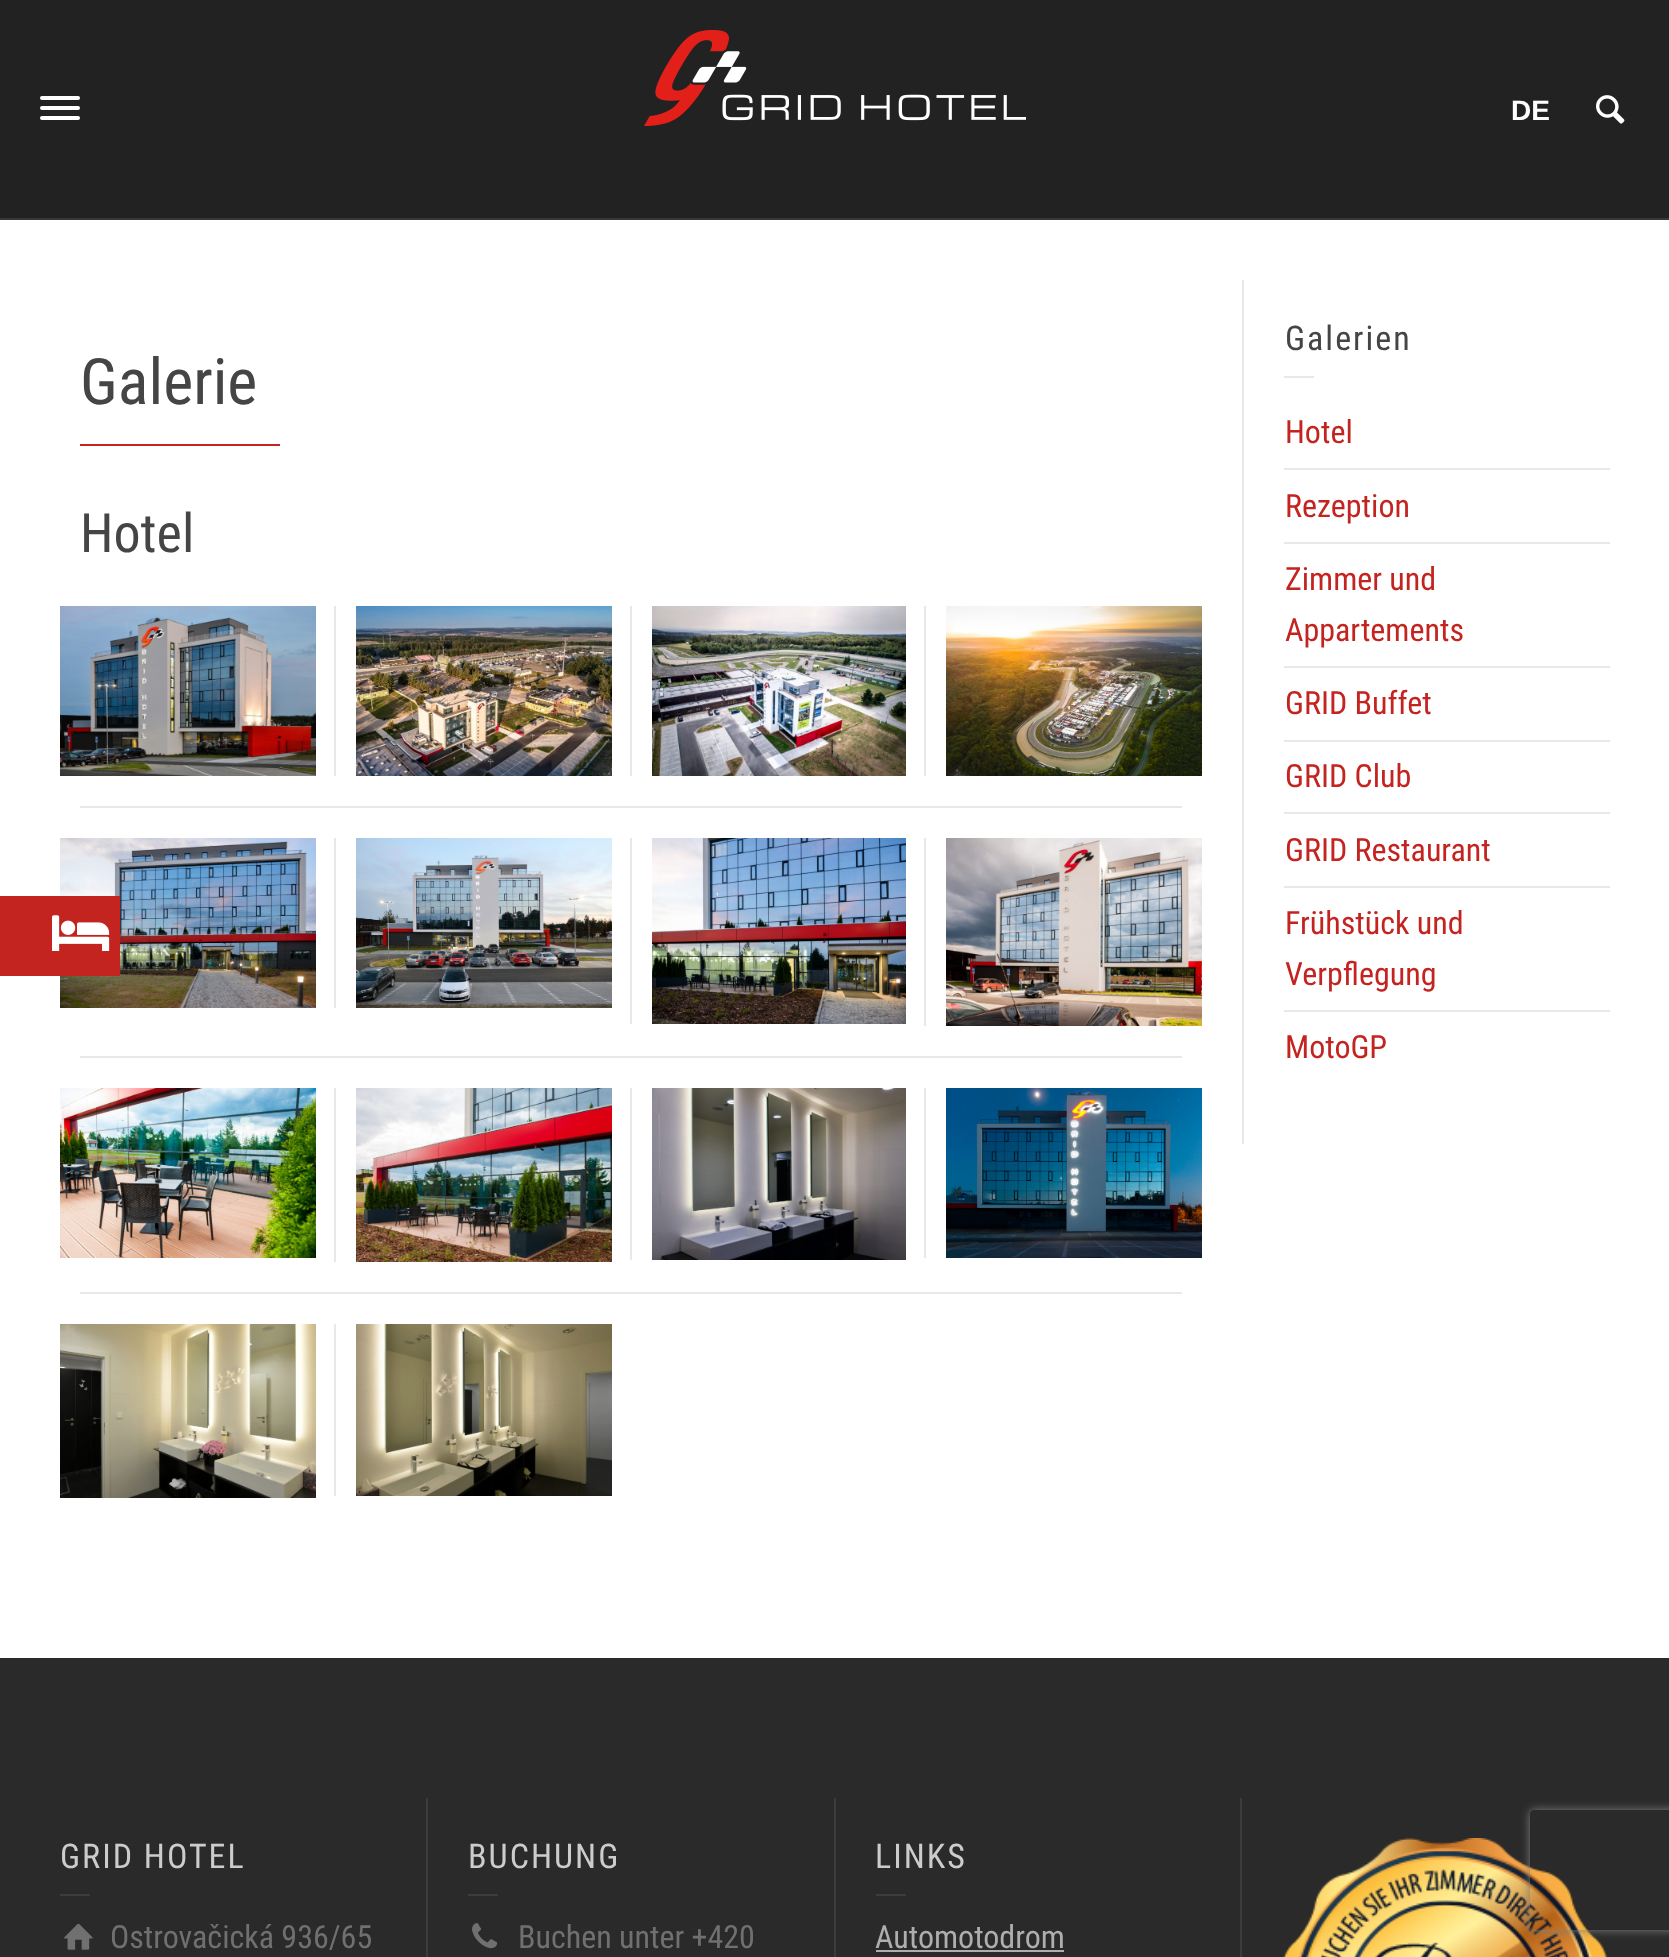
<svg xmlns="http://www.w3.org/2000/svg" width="1669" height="1957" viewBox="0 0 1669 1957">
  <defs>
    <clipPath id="clip1"><path d="M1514 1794H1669V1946H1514ZM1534 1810H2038C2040 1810 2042 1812 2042 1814V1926C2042 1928 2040 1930 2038 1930H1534C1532 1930 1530 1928 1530 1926V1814C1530 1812 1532 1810 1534 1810Z" clip-rule="evenodd"/></clipPath>
  </defs>
  <rect width="100%" height="100%" fill="rgb(34,34,34)"/>
  <rect x="0" y="220" width="1669" height="1438" fill="rgb(255,255,255)"/>
  <image x="60" y="838" width="256" height="170" href="pic8.png"/>
  <rect x="0" y="896" width="120" height="80" fill="rgb(195,36,32)"/>
  <image x="52" y="915" width="58" height="36" href="pic1.png"/>
  <rect x="0" y="218" width="1669" height="2" fill="rgb(56,56,56)"/>
  <rect x="40" y="96" width="40" height="4" rx="2" fill="rgb(255,255,255)"/>
  <rect x="40" y="106" width="40" height="4" rx="2" fill="rgb(255,255,255)"/>
  <rect x="40" y="116" width="40" height="4" rx="2" fill="rgb(255,255,255)"/>
  <image x="644" y="30" width="382" height="96" href="pic2.png"/>
  <text x="1511" y="120" font-family="Liberation Sans" font-size="28" font-weight="bold" fill="rgb(255,255,255)">DE</text>
  <image x="1596" y="95" width="29" height="29" href="pic3.png"/>
  <text x="80" y="404" font-family="Roboto Condensed" font-size="64" fill="rgb(69,69,69)">Galerie</text>
  <rect x="80" y="444" width="200" height="2" fill="rgb(195,36,32)"/>
  <text x="80" y="552" font-family="Roboto Condensed" font-size="54" fill="rgb(69,69,69)">Hotel</text>
  <image x="60" y="606" width="256" height="170" href="pic4.png"/>
  <rect x="334" y="606" width="2" height="170" fill="rgb(232,232,232)"/>
  <image x="356" y="606" width="256" height="170" href="pic5.png"/>
  <rect x="630" y="606" width="2" height="170" fill="rgb(232,232,232)"/>
  <image x="652" y="606" width="254" height="170" href="pic6.png"/>
  <rect x="924" y="606" width="2" height="170" fill="rgb(232,232,232)"/>
  <image x="946" y="606" width="256" height="170" href="pic7.png"/>
  <rect x="80" y="806" width="1102" height="2" fill="rgb(232,232,232)"/>
  <rect x="334" y="838" width="2" height="170" fill="rgb(232,232,232)"/>
  <image x="356" y="838" width="256" height="170" href="pic9.png"/>
  <rect x="630" y="838" width="2" height="186" fill="rgb(232,232,232)"/>
  <image x="652" y="838" width="254" height="186" href="pic10.png"/>
  <rect x="924" y="838" width="2" height="188" fill="rgb(232,232,232)"/>
  <image x="946" y="838" width="256" height="188" href="pic11.png"/>
  <rect x="80" y="1056" width="1102" height="2" fill="rgb(232,232,232)"/>
  <image x="60" y="1088" width="256" height="170" href="pic12.png"/>
  <rect x="334" y="1088" width="2" height="174" fill="rgb(232,232,232)"/>
  <image x="356" y="1088" width="256" height="174" href="pic13.png"/>
  <rect x="630" y="1088" width="2" height="172" fill="rgb(232,232,232)"/>
  <image x="652" y="1088" width="254" height="172" href="pic14.png"/>
  <rect x="924" y="1088" width="2" height="170" fill="rgb(232,232,232)"/>
  <image x="946" y="1088" width="256" height="170" href="pic15.png"/>
  <rect x="80" y="1292" width="1102" height="2" fill="rgb(232,232,232)"/>
  <image x="60" y="1324" width="256" height="174" href="pic16.png"/>
  <rect x="334" y="1324" width="2" height="172" fill="rgb(232,232,232)"/>
  <image x="356" y="1324" width="256" height="172" href="pic17.png"/>
  <rect x="1242" y="280" width="2" height="864" fill="rgb(232,232,232)"/>
  <text x="1285" y="350" font-family="Roboto Condensed" font-size="34" letter-spacing="2" fill="rgb(69,69,69)">Galerien</text>
  <rect x="1284" y="376" width="30" height="2" fill="rgb(232,232,232)"/>
  <rect x="1284" y="468" width="326" height="2" fill="rgb(232,232,232)"/>
  <text x="1285" y="443" font-family="Roboto Condensed" font-size="32" fill="rgb(195,36,32)">Hotel</text>
  <rect x="1284" y="542" width="326" height="2" fill="rgb(232,232,232)"/>
  <text x="1285" y="517" font-family="Roboto Condensed" font-size="32" fill="rgb(195,36,32)">Rezeption</text>
  <rect x="1284" y="666" width="326" height="2" fill="rgb(232,232,232)"/>
  <g font-family="Roboto Condensed" font-size="32" fill="rgb(195,36,32)">
    <text>
      <tspan x="1285" y="590">Zimmer und</tspan>
      <tspan x="1285" y="641">Appartements</tspan>
    </text>
  </g>
  <rect x="1284" y="740" width="326" height="2" fill="rgb(232,232,232)"/>
  <text x="1285" y="714" font-family="Roboto Condensed" font-size="32" fill="rgb(195,36,32)">GRID Buffet</text>
  <rect x="1284" y="812" width="326" height="2" fill="rgb(232,232,232)"/>
  <text x="1285" y="787" font-family="Roboto Condensed" font-size="32" fill="rgb(195,36,32)">GRID Club</text>
  <rect x="1284" y="886" width="326" height="2" fill="rgb(232,232,232)"/>
  <text x="1285" y="861" font-family="Roboto Condensed" font-size="32" fill="rgb(195,36,32)">GRID Restaurant</text>
  <rect x="1284" y="1010" width="326" height="2" fill="rgb(232,232,232)"/>
  <g font-family="Roboto Condensed" font-size="32" fill="rgb(195,36,32)">
    <text>
      <tspan x="1285" y="934">Frühstück und</tspan>
      <tspan x="1285" y="985">Verpflegung</tspan>
    </text>
    <text x="1285" y="1058">MotoGP</text>
  </g>
  <rect x="0" y="1658" width="1669" height="299" fill="rgb(42,42,42)"/>
  <text x="60" y="1868" font-family="Roboto Condensed" font-size="34" letter-spacing="2" fill="rgb(204,204,204)">GRID HOTEL</text>
  <rect x="60" y="1894" width="30" height="2" fill="rgb(60,60,60)"/>
  <image x="64" y="1923" width="29" height="27" href="pic18.png"/>
  <text x="110" y="1948" font-family="Roboto Condensed" font-size="32" fill="rgb(112,112,112)">Ostrovačická 936/65</text>
  <rect x="426" y="1798" width="2" height="159" fill="rgb(60,60,60)"/>
  <text x="468" y="1868" font-family="Roboto Condensed" font-size="34" letter-spacing="2" fill="rgb(204,204,204)">BUCHUNG</text>
  <rect x="468" y="1894" width="30" height="2" fill="rgb(60,60,60)"/>
  <image x="472" y="1923" width="26" height="26" href="pic19.png"/>
  <text x="518" y="1948" font-family="Roboto Condensed" font-size="32" fill="rgb(112,112,112)">Buchen unter +420</text>
  <rect x="834" y="1798" width="2" height="159" fill="rgb(60,60,60)"/>
  <text x="875" y="1868" font-family="Roboto Condensed" font-size="34" letter-spacing="2" fill="rgb(204,204,204)">LINKS</text>
  <rect x="876" y="1894" width="30" height="2" fill="rgb(60,60,60)"/>
  <text x="875" y="1948" font-family="Roboto Condensed" font-size="32" fill="rgb(174,174,174)">Automotodrom</text>
  <rect x="876" y="1950" width="188" height="2" fill="rgb(174,174,174)"/>
  <rect x="1240" y="1798" width="2" height="159" fill="rgb(60,60,60)"/>
  <image x="1283" y="1838" width="325" height="119" href="pic20.png"/>
  <g clip-path="url(#clip1)">
    <rect x="1530" y="1810" width="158" height="120" rx="4" fill="rgb(128,128,128)" filter="blur(5px)"/>
  </g>
</svg>
